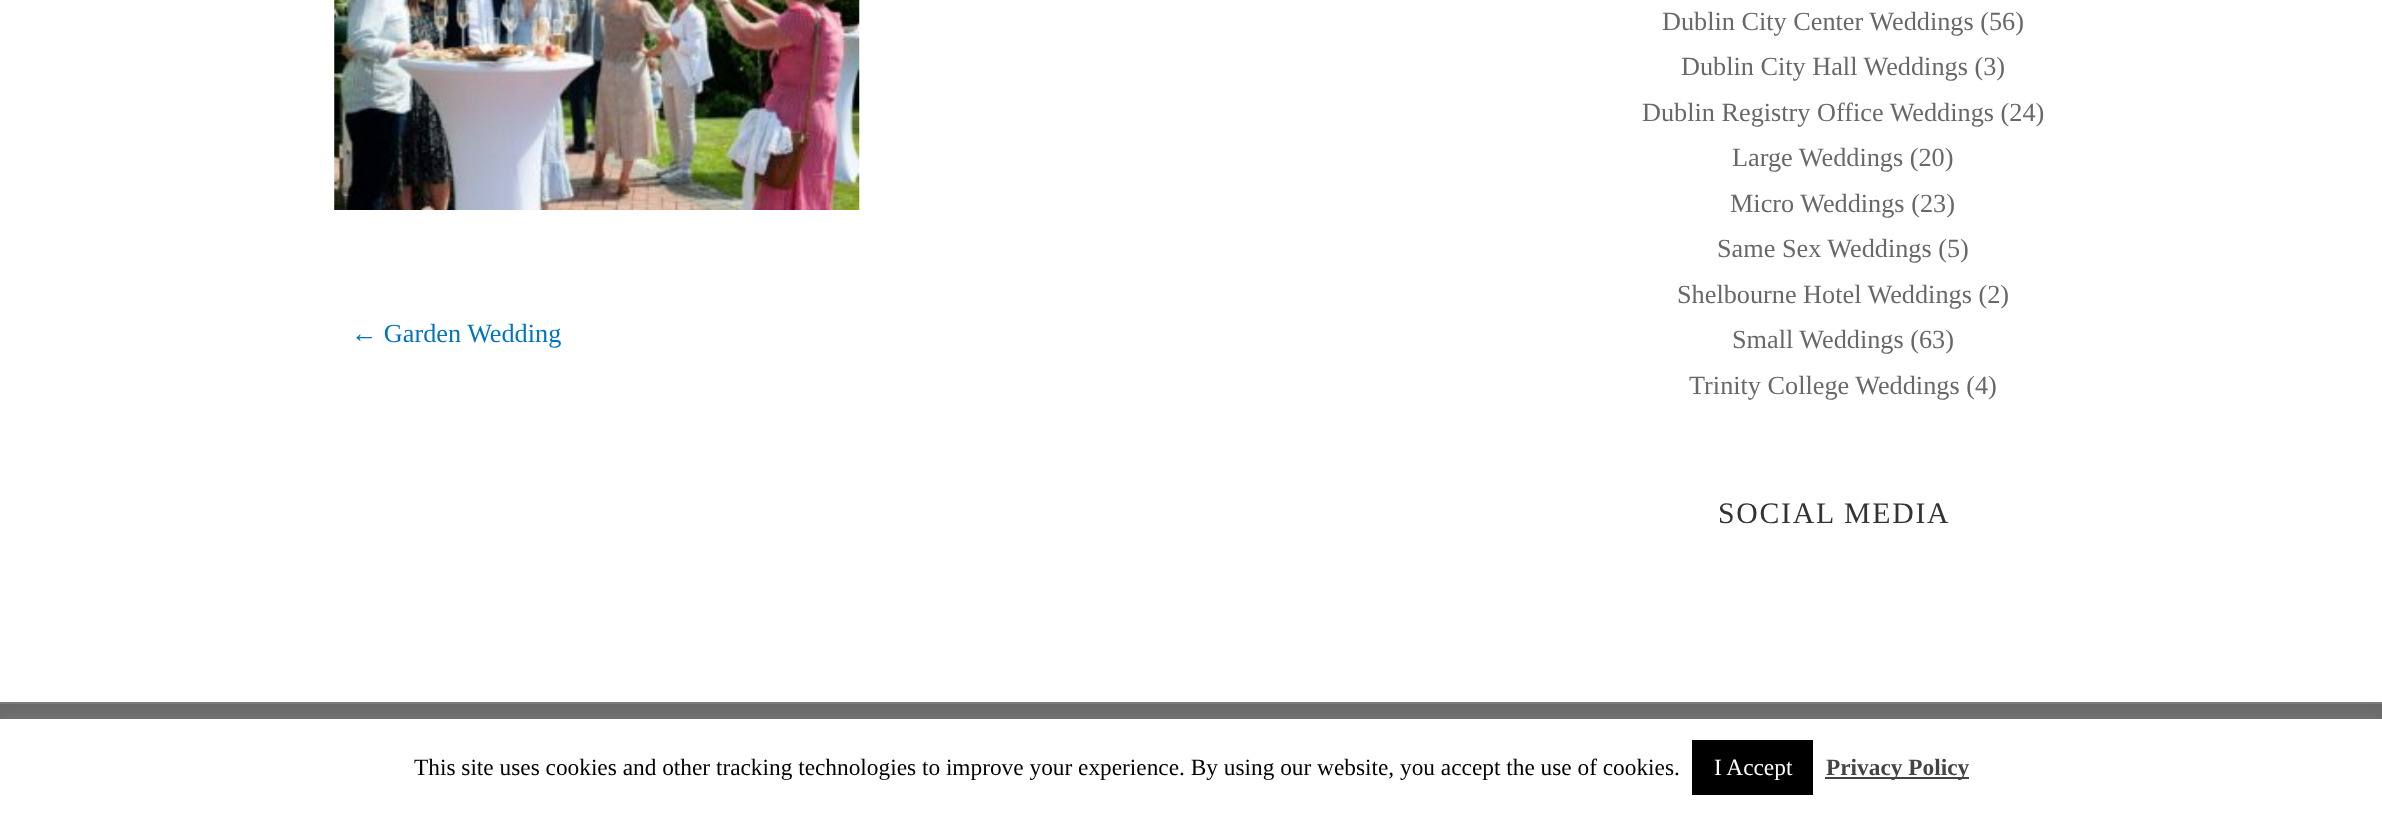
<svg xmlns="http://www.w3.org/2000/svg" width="2382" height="814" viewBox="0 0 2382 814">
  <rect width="100%" height="100%" fill="rgb(255,255,255)"/>
  <image x="334" y="0" width="526" height="210" href="pic1.png"/>
  <text x="351" y="342" font-family="Liberation Serif" font-size="26.25" fill="rgb(2,116,190)">← Garden Wedding</text>
  <g font-family="Liberation Serif" font-size="26.25" fill="rgb(104,104,104)">
    <text x="1662" y="30">Dublin City Center Weddings (56)</text>
    <text x="1681" y="75">Dublin City Hall Weddings (3)</text>
    <text x="1642" y="121">Dublin Registry Office Weddings (24)</text>
    <text x="1732" y="166">Large Weddings (20)</text>
    <text x="1730" y="212">Micro Weddings (23)</text>
    <text x="1717" y="257">Same Sex Weddings (5)</text>
    <text x="1677" y="303">Shelbourne Hotel Weddings (2)</text>
    <text x="1732" y="348">Small Weddings (63)</text>
    <text x="1689" y="394">Trinity College Weddings (4)</text>
  </g>
  <text x="1718" y="523" font-family="Liberation Serif" font-size="29.75" letter-spacing="1.75" fill="rgb(51,51,51)">SOCIAL MEDIA</text>
  <rect x="0" y="702" width="2382" height="2" fill="rgb(122,122,122)"/>
  <rect x="0" y="704" width="2382" height="15" fill="rgb(104,104,104)"/>
  <rect x="0" y="718" width="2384" height="96" fill="rgba(172,171,171,0.3)" filter="blur(9px)"/>
  <rect x="0" y="719" width="2382" height="95" fill="rgb(255,255,255)"/>
  <text x="414" y="775" font-family="Liberation Serif" font-size="23.33" fill="rgb(0,0,0)">This site uses cookies and other tracking technologies to improve your experience. By using our website, you accept the use of cookies.</text>
  <rect x="1692" y="740" width="121" height="55" fill="rgb(0,0,0)"/>
  <text x="1714" y="775" font-family="Liberation Serif" font-size="23.33" fill="rgb(255,255,255)">I Accept</text>
  <rect x="1825" y="777" width="144" height="2" fill="rgb(68,68,68)"/>
  <text x="1826" y="775" font-family="Liberation Serif" font-size="23.33" font-weight="bold" fill="rgb(68,68,68)">Privacy Policy</text>
</svg>
